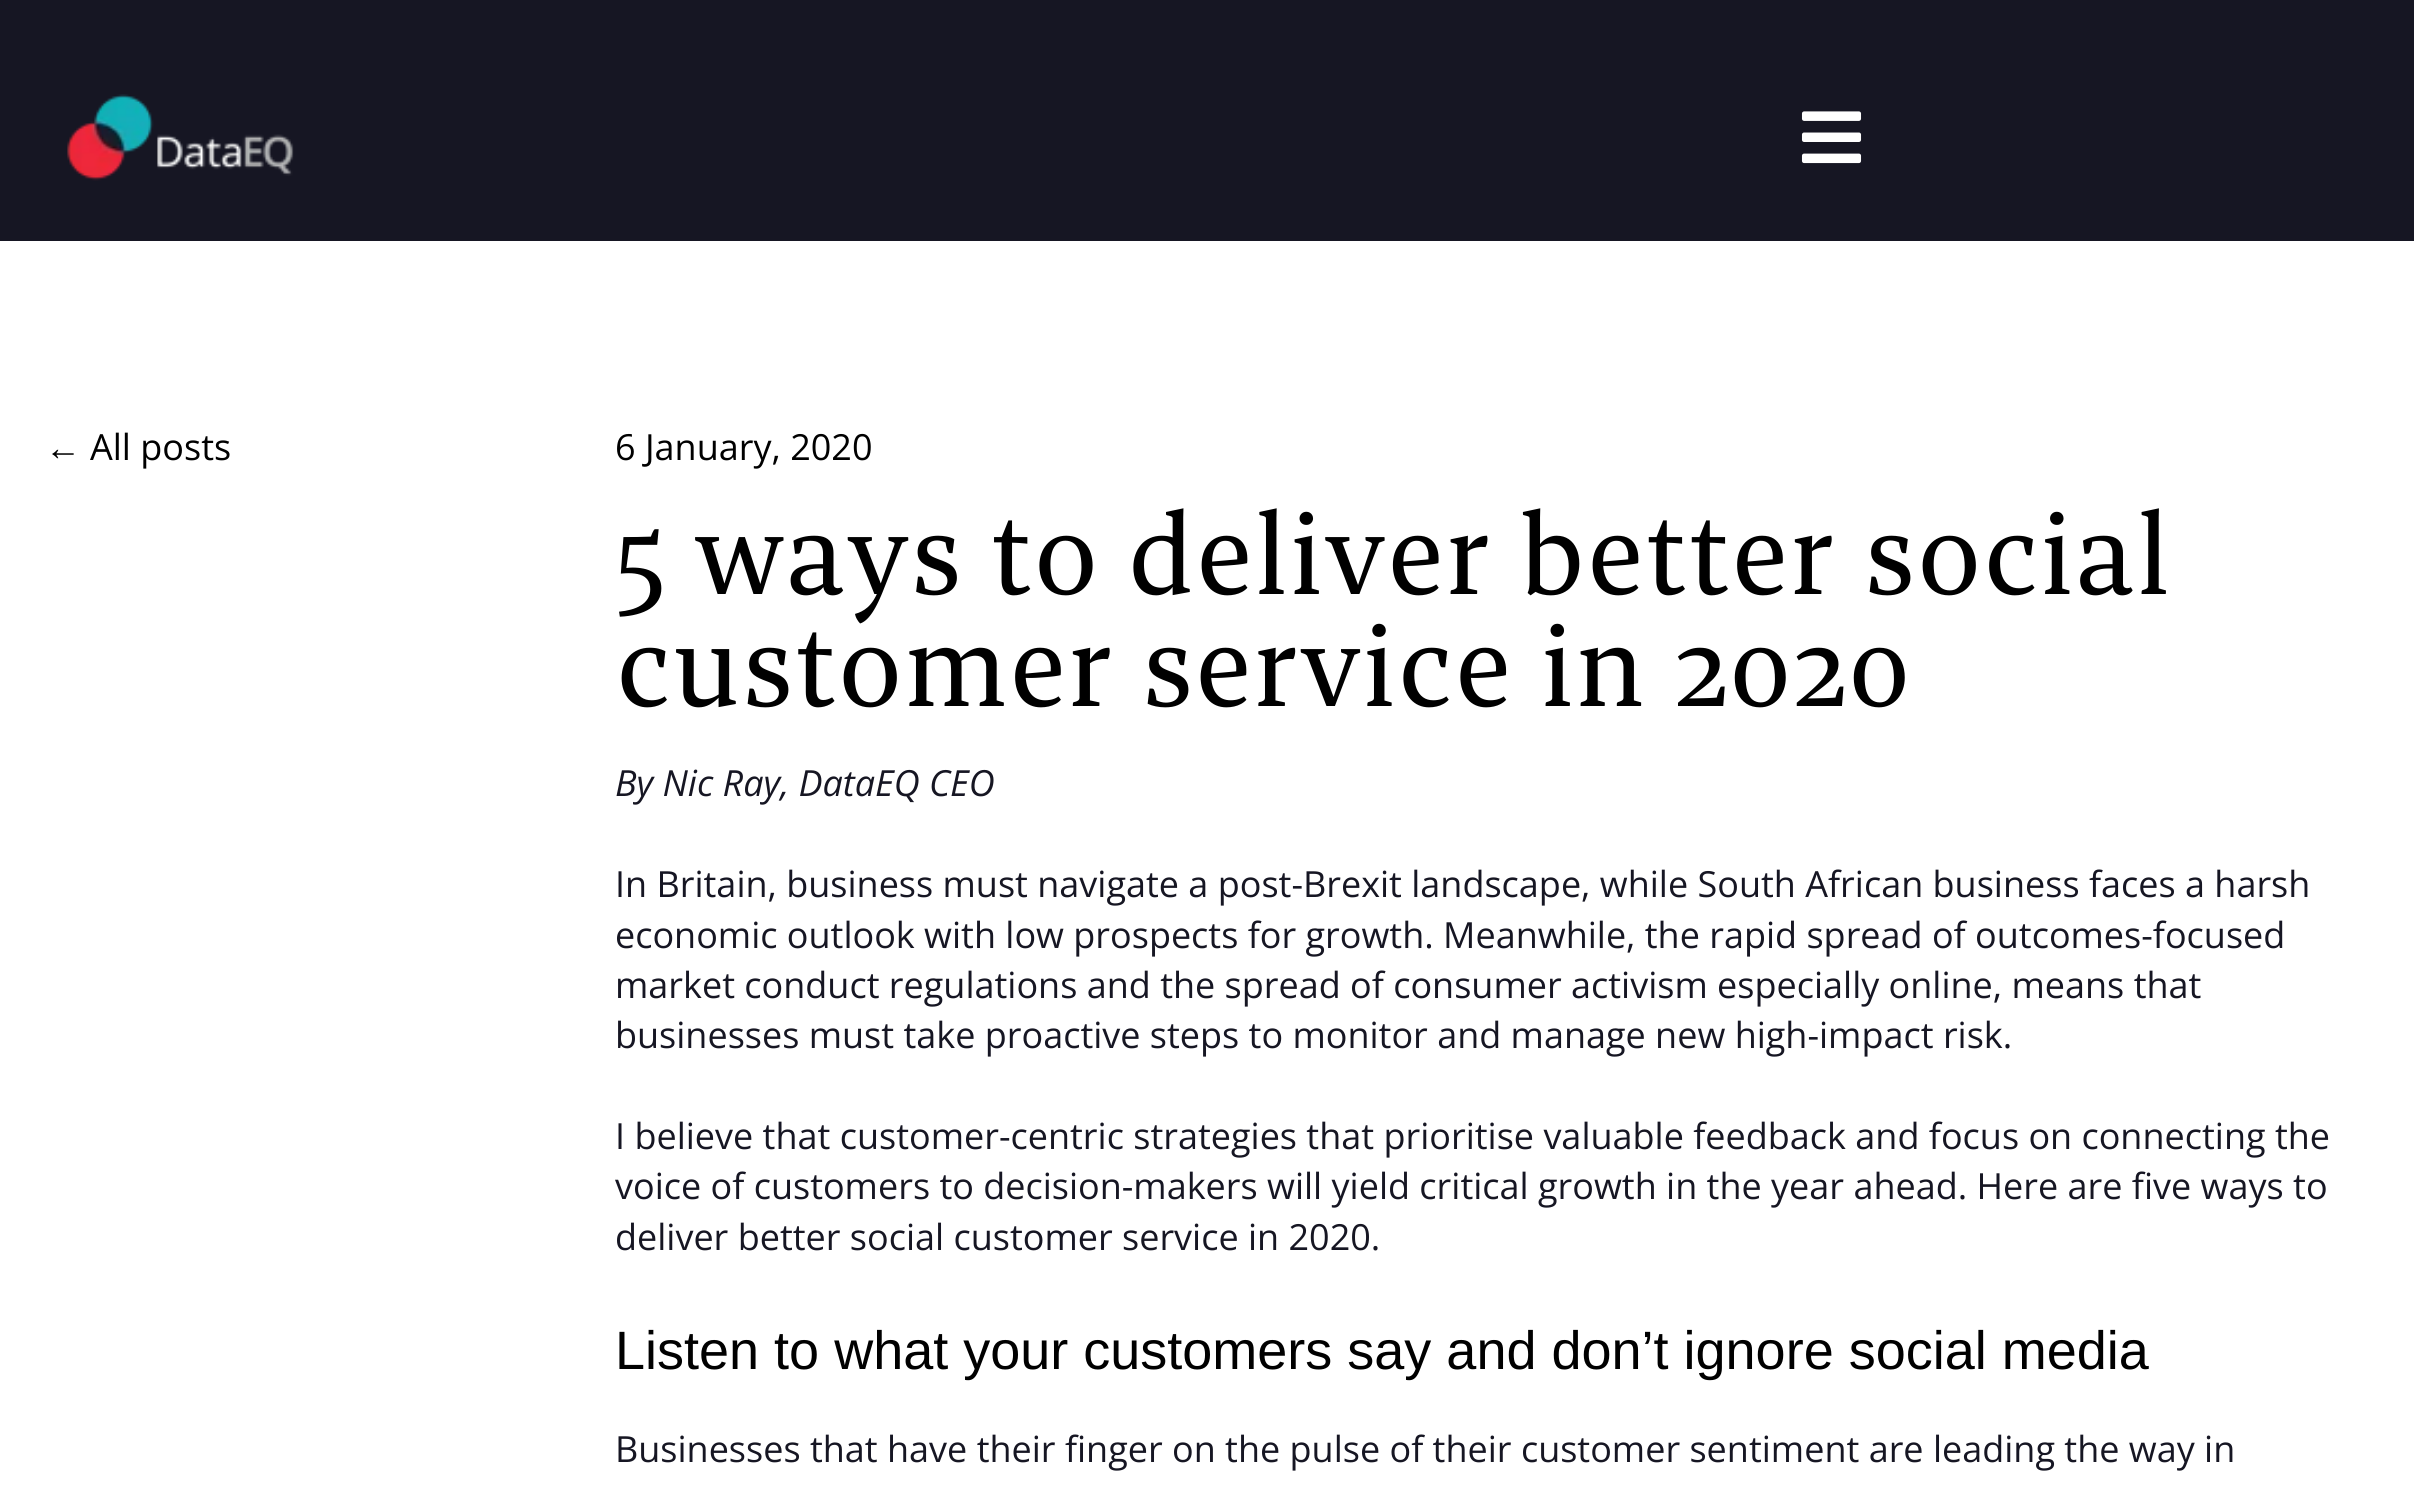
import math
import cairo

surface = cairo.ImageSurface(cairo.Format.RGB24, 2414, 1499)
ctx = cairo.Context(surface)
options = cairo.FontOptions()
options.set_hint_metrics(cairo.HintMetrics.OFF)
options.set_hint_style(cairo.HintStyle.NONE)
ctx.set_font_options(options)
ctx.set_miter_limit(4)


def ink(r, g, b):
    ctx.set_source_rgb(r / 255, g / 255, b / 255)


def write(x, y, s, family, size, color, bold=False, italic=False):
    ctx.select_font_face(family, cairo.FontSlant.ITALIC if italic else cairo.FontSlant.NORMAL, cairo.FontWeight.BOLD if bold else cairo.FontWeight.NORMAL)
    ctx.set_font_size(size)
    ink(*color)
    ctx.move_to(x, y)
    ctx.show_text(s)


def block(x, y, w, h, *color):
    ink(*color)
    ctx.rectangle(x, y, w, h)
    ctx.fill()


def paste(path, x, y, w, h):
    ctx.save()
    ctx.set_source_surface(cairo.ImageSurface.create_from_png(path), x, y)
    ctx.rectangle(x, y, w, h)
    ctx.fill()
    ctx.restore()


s1 = dict(family="Liberation Serif", size=36, color=(0, 0, 0))
s2 = dict(family="Open Sans", size=36, color=(0, 0, 0))
s3 = dict(family="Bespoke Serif", size=112.5, color=(0, 0, 0))
s4 = dict(family="Open Sans", size=36, color=(22, 22, 35), italic=True)
s5 = dict(family="Open Sans", size=36, color=(22, 22, 35))
s6 = dict(family="Liberation Sans", size=54, color=(0, 0, 0))

ink(22, 22, 35)
ctx.paint()
paste("pic1.png", 67, 94, 227, 87)
paste("pic2.png", 1801, 111, 61, 53)
block(0, 241, 2414, 1258, 255, 255, 255)
write(45, 460, "←", **s1)
write(90, 460, "All posts", **s2)
write(615, 460, "6 January, 2020", **s2)
write(615, 594, "5 ways to deliver better social", **s3)
write(615, 706, "customer service in 2020", **s3)
write(615, 796, "By Nic Ray, DataEQ CEO", **s4)
write(615, 897, "In Britain, business must navigate a post-Brexit landscape, while South African business faces a harsh", **s5)
write(615, 948, "economic outlook with low prospects for growth. Meanwhile, the rapid spread of outcomes-focused", **s5)
write(615, 998, "market conduct regulations and the spread of consumer activism especially online, means that", **s5)
write(615, 1048, "businesses must take proactive steps to monitor and manage new high-impact risk.", **s5)
write(615, 1149, "I believe that customer-centric strategies that prioritise valuable feedback and focus on connecting the", **s5)
write(615, 1199, "voice of customers to decision-makers will yield critical growth in the year ahead. Here are five ways to", **s5)
write(615, 1250, "deliver better social customer service in 2020.", **s5)
write(615, 1369, "Listen to what your customers say and don’t ignore social media", **s6)
write(615, 1462, "Businesses that have their finger on the pulse of their customer sentiment are leading the way in", **s5)
surface.write_to_png("screenshot.png")
